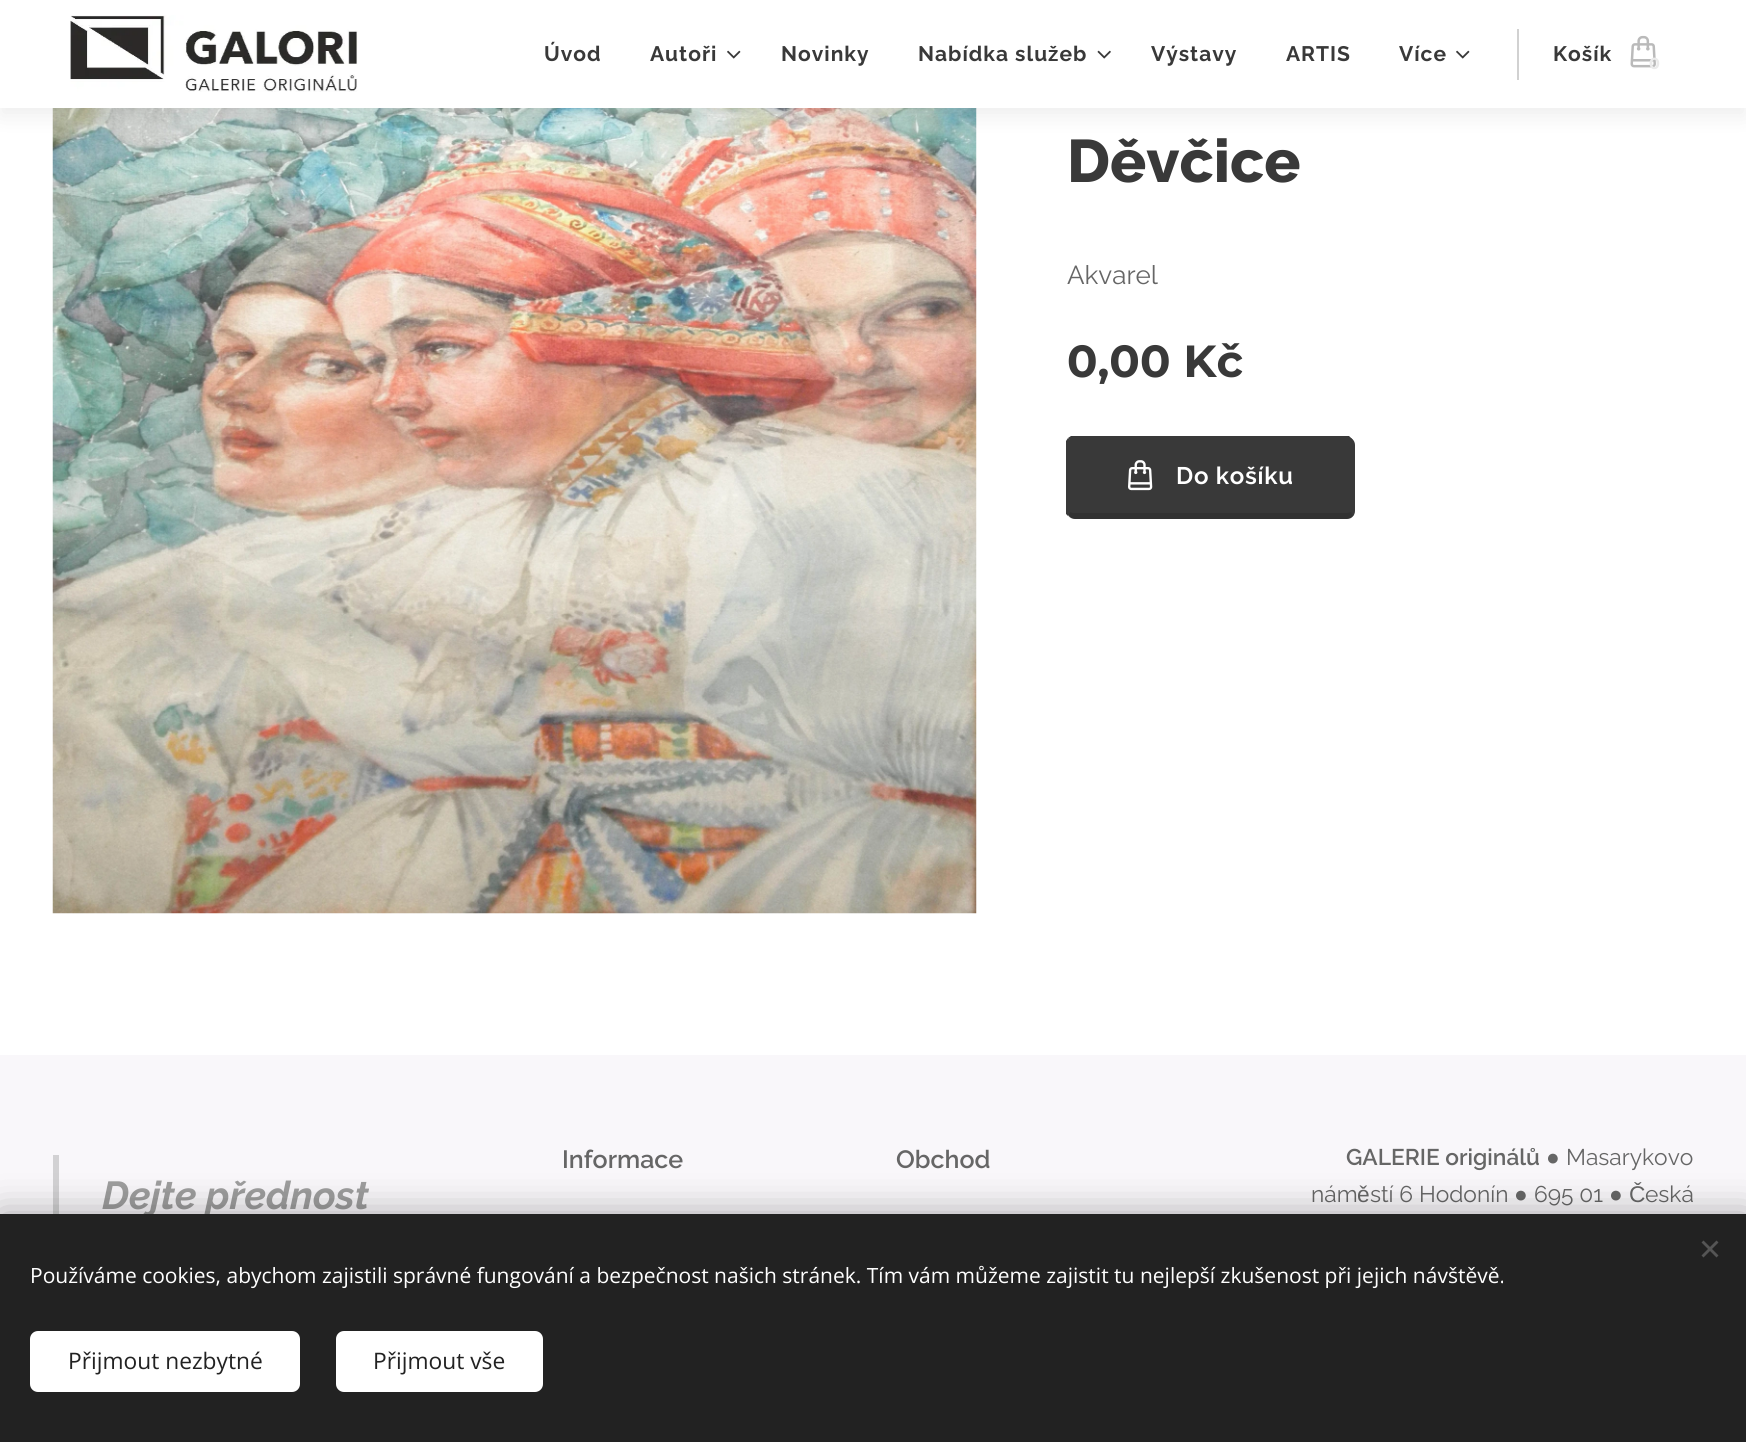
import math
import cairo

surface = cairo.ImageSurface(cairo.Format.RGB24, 1746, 1442)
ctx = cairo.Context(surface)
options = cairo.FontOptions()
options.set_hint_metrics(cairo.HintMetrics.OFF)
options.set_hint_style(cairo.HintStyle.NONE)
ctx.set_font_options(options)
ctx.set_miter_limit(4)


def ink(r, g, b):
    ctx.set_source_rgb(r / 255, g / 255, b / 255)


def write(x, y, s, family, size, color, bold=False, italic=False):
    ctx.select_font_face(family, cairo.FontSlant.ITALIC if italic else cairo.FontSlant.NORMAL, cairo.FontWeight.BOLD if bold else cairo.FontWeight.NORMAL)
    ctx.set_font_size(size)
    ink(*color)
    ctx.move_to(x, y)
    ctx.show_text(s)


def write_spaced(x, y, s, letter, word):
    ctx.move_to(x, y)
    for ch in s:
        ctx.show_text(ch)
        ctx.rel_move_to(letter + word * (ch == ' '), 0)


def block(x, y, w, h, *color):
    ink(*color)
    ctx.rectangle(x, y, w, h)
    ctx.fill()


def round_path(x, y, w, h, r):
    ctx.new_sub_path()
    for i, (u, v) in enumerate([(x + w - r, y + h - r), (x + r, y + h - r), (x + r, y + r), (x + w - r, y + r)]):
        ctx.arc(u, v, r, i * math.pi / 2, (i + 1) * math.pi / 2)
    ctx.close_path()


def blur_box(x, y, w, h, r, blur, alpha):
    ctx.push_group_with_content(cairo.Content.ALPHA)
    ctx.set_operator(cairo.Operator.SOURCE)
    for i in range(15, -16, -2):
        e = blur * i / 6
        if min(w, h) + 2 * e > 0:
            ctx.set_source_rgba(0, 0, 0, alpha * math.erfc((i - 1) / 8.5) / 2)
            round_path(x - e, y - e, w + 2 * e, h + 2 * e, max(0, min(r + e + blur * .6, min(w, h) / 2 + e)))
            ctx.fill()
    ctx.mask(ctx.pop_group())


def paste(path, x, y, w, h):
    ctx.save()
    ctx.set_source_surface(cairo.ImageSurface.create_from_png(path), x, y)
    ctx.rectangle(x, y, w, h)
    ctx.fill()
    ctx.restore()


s1 = dict(family="Montserrat", size=16, color=(235, 235, 235), bold=True)
s2 = dict(family="Raleway ExtraBold", size=60, color=(57, 57, 57))
s3 = dict(family="Raleway", size=26, color=(102, 102, 102))
s4 = dict(family="Montserrat", size=45, color=(57, 57, 57), bold=True)
s5 = dict(family="Raleway SemiBold", size=25, color=(102, 102, 102))
s6 = dict(family="Raleway SemiBold", size=22.75, color=(102, 102, 102))
s7 = dict(family="Liberation Sans", size=22.75, color=(102, 102, 102))
s8 = dict(family="Raleway", size=22.75, color=(102, 102, 102))
s9 = dict(family="Raleway", size=39, color=(157, 157, 157), bold=True, italic=True)
s10 = dict(family="Open Sans", size=21, color=(255, 255, 255))
s11 = dict(family="Open Sans", size=22.75, color=(34, 34, 34))

ink(255, 255, 255)
ctx.paint()
paste("pic5.png", 52, 108, 925, 806)
ink(0, 0, 0)
blur_box(0, 8, 1746, 108, 0, 11, 0.07)
block(0, 0, 1746, 108, 255, 255, 255)
paste("pic1.png", 70, 15, 288, 77)
ctx.select_font_face("Raleway", cairo.FontSlant.NORMAL, cairo.FontWeight.BOLD)
ctx.set_font_size(21)
ink(57, 57, 57)
write_spaced(544, 61, "Úvod", 1, 0)
write_spaced(650, 61, "Autoři", 1, 0)
paste("pic2.png", 727, 50, 14, 9)
write_spaced(781, 61, "Novinky", 1, 0)
write_spaced(918, 61, "Nabídka služeb", 1, 0)
paste("pic3.png", 1097, 50, 14, 9)
write_spaced(1151, 61, "Výstavy", 1, 0)
write_spaced(1286, 61, "ARTIS", 1, 0)
write_spaced(1399, 61, "Více", 1, 0)
paste("pic2.png", 1456, 50, 14, 9)
block(1517, 29, 2, 51, 209, 209, 209)
ink(57, 57, 57)
write_spaced(1553, 61, "Košík", 1, 0)
paste("pic4.png", 1630, 35, 26, 33)
write(1649, 69, "0", **s1)
write(1067, 182, "Děvčice", **s2)
write(1067, 284, "Akvarel", **s3)
write(1067, 377, "0,00 Kč", **s4)
round_path(1067, 437, 288, 82, 8)
ctx.fill()
ctx.new_path()
ctx.move_to(1074, 440)
ctx.line_to(1071, 441)
ctx.line_to(1068, 438)
ctx.line_to(1071, 436)
ctx.line_to(1349, 436)
ctx.line_to(1352, 439)
ctx.line_to(1350, 441)
ctx.line_to(1347, 440)
ctx.close_path()
ctx.fill()
ctx.new_path()
ctx.move_to(1352, 439)
ctx.line_to(1354, 443)
ctx.line_to(1354, 501)
ctx.curve_to(1354, 503, 1355, 512, 1353, 516)
ctx.line_to(1351, 512)
ctx.line_to(1352, 512)
ctx.line_to(1352, 444)
ctx.line_to(1350, 441)
ctx.close_path()
ctx.fill()
ctx.set_source_rgba(0, 0, 0, 0.12)
ctx.new_path()
ctx.move_to(1074, 519)
ctx.line_to(1347, 519)
ctx.curve_to(1350, 519, 1352, 518, 1353, 516)
ctx.line_to(1351, 512)
ctx.line_to(1347, 513)
ctx.line_to(1074, 513)
ctx.curve_to(1072, 513, 1070, 512, 1070, 512)
ctx.line_to(1068, 516)
ctx.curve_to(1069, 518, 1072, 519, 1074, 519)
ctx.close_path()
ctx.fill()
ink(57, 57, 57)
ctx.new_path()
ctx.move_to(1066, 441)
ctx.line_to(1068, 438)
ctx.line_to(1071, 441)
ctx.line_to(1070, 444)
ctx.line_to(1070, 512)
ctx.line_to(1068, 516)
ctx.line_to(1066, 514)
ctx.close_path()
ctx.fill()
paste("pic6.png", 1128, 460, 25, 31)
ctx.select_font_face("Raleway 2 SemiBold")
ctx.set_font_size(24)
ink(255, 255, 255)
write_spaced(1176, 484, "Do košíku", 0.75, 0)
block(0, 1055, 1746, 159, 249, 247, 250)
write(562, 1168, "Informace", **s5)
write(896, 1168, "Obchod", **s5)
write(1346, 1165, "GALERIE originálů", **s6)
write(1546, 1165, "●", **s7)
write(1566, 1165, "Masarykovo", **s8)
write(1311, 1202, "nám", **s8)
write(1357, 1202, "ě", **s7)
write(1370, 1202, "stí 6 Hodonín", **s8)
write(1514, 1202, "●", **s7)
write(1534, 1202, "695 01", **s8)
write(1609, 1202, "●", **s7)
write(1629, 1202, "Č", **s7)
write(1645, 1202, "eská", **s8)
block(53, 1155, 6, 59, 210, 209, 211)
write(102, 1209, "Dejte přednost", **s9)
ink(0, 0, 0)
blur_box(0, 1214, 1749, 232, 0, 19, 0.33)
block(0, 1214, 1746, 228, 34, 34, 34)
ink(85, 85, 85)
ctx.new_path()
ctx.move_to(1701.5, 1255.5)
ctx.line_to(1716.5, 1240.5)
ctx.line_to(1718.5, 1242.5)
ctx.line_to(1703.5, 1257.5)
ctx.close_path()
ctx.fill()
ctx.new_path()
ctx.move_to(1703.5, 1240.5)
ctx.line_to(1718.5, 1255.5)
ctx.line_to(1716.5, 1257.5)
ctx.line_to(1701.5, 1242.5)
ctx.close_path()
ctx.fill()
write(30, 1283, "Používáme cookies, abychom zajistili správné fungování a bezpečnost našich stránek. Tím vám můžeme zajistit tu nejlepší zkušenost při jejich návštěvě.", **s10)
round_path(30, 1331, 270, 61, 8)
ctx.fill()
write(68, 1369, "Přijmout nezbytné", **s11)
ink(255, 255, 255)
round_path(336, 1331, 207, 61, 8)
ctx.fill()
write(373, 1369, "Přijmout vše", **s11)
surface.write_to_png("screenshot.png")
